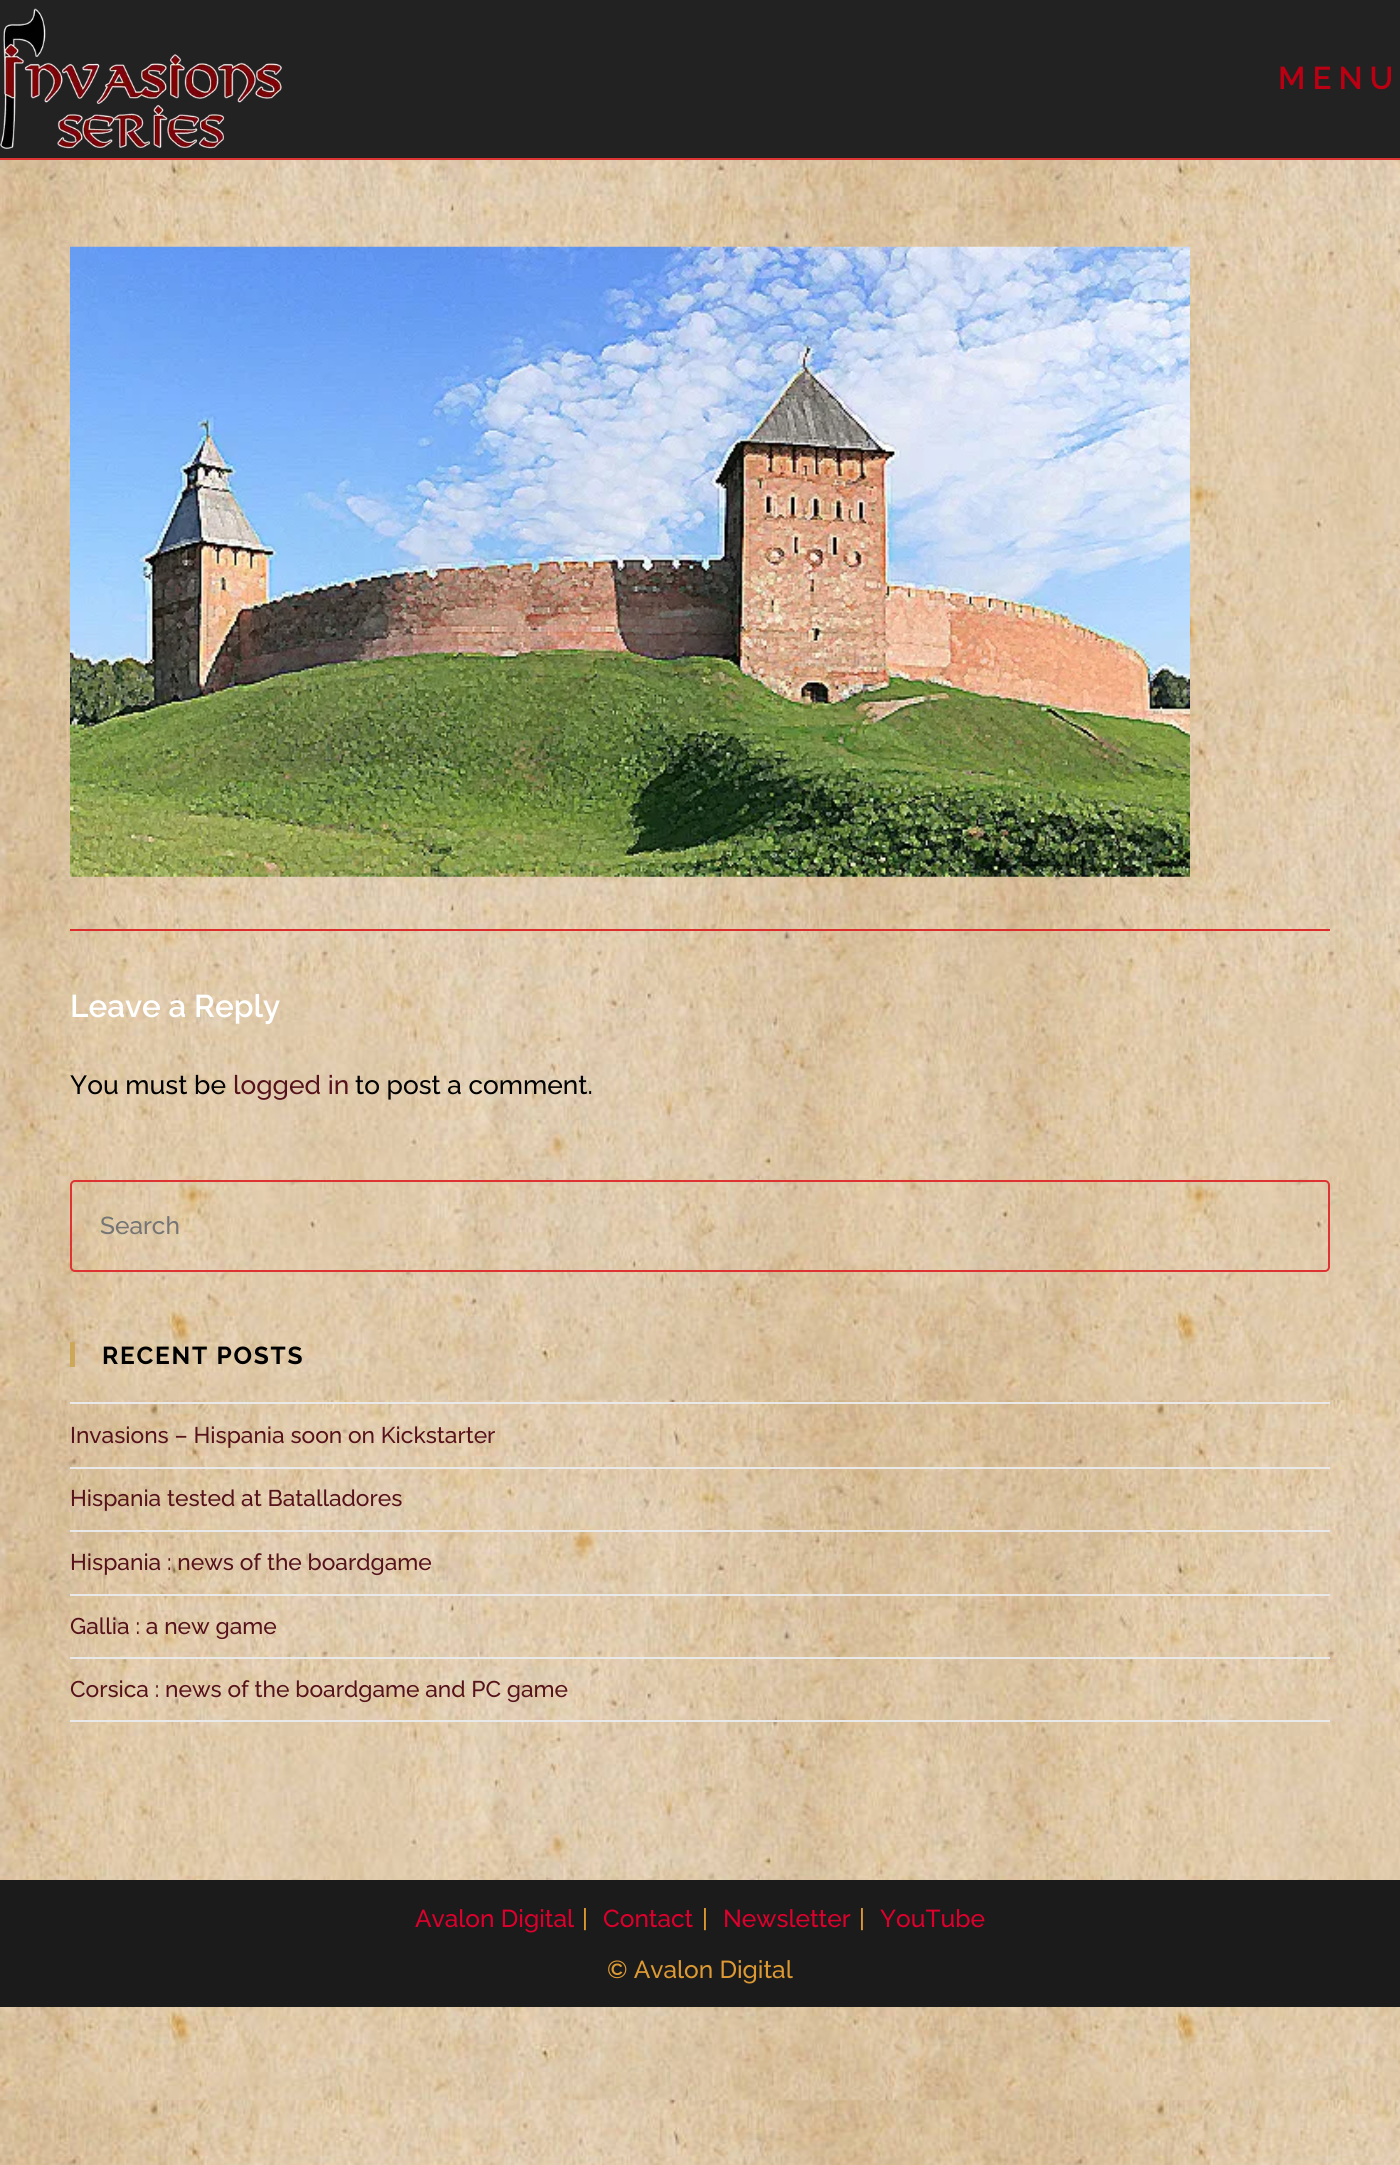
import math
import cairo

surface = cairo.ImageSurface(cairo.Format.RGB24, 1400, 2165)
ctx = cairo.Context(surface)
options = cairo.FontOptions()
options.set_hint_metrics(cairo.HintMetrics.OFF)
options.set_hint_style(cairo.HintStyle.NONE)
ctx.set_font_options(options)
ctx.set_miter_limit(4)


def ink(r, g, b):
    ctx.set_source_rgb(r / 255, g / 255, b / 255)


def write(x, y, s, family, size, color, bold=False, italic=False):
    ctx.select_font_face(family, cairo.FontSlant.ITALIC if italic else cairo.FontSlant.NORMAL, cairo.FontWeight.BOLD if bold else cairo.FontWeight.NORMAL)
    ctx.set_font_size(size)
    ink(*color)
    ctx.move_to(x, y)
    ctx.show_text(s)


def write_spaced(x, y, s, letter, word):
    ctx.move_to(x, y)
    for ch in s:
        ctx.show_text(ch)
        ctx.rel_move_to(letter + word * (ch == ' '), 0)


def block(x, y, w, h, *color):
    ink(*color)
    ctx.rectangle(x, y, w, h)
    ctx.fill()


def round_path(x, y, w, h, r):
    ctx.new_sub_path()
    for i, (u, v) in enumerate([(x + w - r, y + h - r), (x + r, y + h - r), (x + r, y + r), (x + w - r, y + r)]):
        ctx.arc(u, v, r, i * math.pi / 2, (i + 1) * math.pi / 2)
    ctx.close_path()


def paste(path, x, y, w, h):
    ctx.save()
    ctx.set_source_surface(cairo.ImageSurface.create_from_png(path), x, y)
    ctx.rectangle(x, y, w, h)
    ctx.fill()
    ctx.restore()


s1 = dict(family="Raleway SemiBold", size=31.5, color=(255, 255, 255))
s2 = dict(family="Raleway Medium", size=26.25, color=(0, 0, 0))
s3 = dict(family="Raleway Medium", size=26.25, color=(86, 18, 26))
s4 = dict(family="Raleway Medium", size=24.5, color=(117, 117, 117))
s5 = dict(family="Raleway Medium", size=22.75, color=(86, 18, 26))
s6 = dict(family="Raleway Medium", size=24.5, color=(221, 0, 44))
s7 = dict(family="Raleway Medium", size=24.5, color=(221, 153, 51))

ink(255, 255, 255)
ctx.paint()
paste("pic1.png", 0, 160, 1400, 2005)
block(0, 0, 1400, 158, 34, 34, 34)
block(0, 158, 1400, 2, 221, 51, 51)
paste("pic2.png", 0, 8, 282, 141)
ctx.select_font_face("Raleway SemiBold")
ctx.set_font_size(31.5)
ink(186, 0, 18)
write_spaced(1278, 89, "MENU", 7, 0)
paste("pic3.png", 70, 246, 1120, 631)
block(70, 929, 1260, 2, 221, 44, 44)
write(70, 1017, "Leave a Reply", **s1)
write(70, 1094, "You must be", **s2)
write(233, 1094, "logged in", **s3)
write(355, 1094, "to post a comment.", **s2)
round_path(71, 1181, 1258, 90, 4)
ink(221, 51, 51)
ctx.stroke()
write(100, 1234, "Search", **s4)
block(70, 1342, 5, 25, 205, 168, 91)
ctx.select_font_face("Raleway", cairo.FontSlant.NORMAL, cairo.FontWeight.BOLD)
ink(0, 0, 0)
write_spaced(102, 1364, "RECENT POSTS", 1.75, 0)
block(70, 1402, 1260, 2, 233, 233, 233)
block(70, 1467, 1260, 2, 233, 233, 233)
write(70, 1443, "Invasions – Hispania soon on Kickstarter", **s5)
block(70, 1530, 1260, 2, 233, 233, 233)
write(70, 1506, "Hispania tested at Batalladores", **s5)
block(70, 1594, 1260, 2, 233, 233, 233)
write(70, 1570, "Hispania : news of the boardgame", **s5)
block(70, 1657, 1260, 2, 233, 233, 233)
write(70, 1634, "Gallia : a new game", **s5)
block(70, 1720, 1260, 2, 233, 233, 233)
write(70, 1697, "Corsica : news of the boardgame and PC game", **s5)
block(0, 1880, 1400, 127, 27, 27, 27)
write(415, 1927, "Avalon Digital", **s6)
write(582, 1927, "|", **s7)
write(603, 1927, "Contact", **s6)
write(702, 1927, "|", **s7)
write(723, 1927, "Newsletter", **s6)
write(859, 1927, "|", **s7)
write(880, 1927, "YouTube", **s6)
write(607, 1978, "© Avalon Digital", **s7)
surface.write_to_png("screenshot.png")
